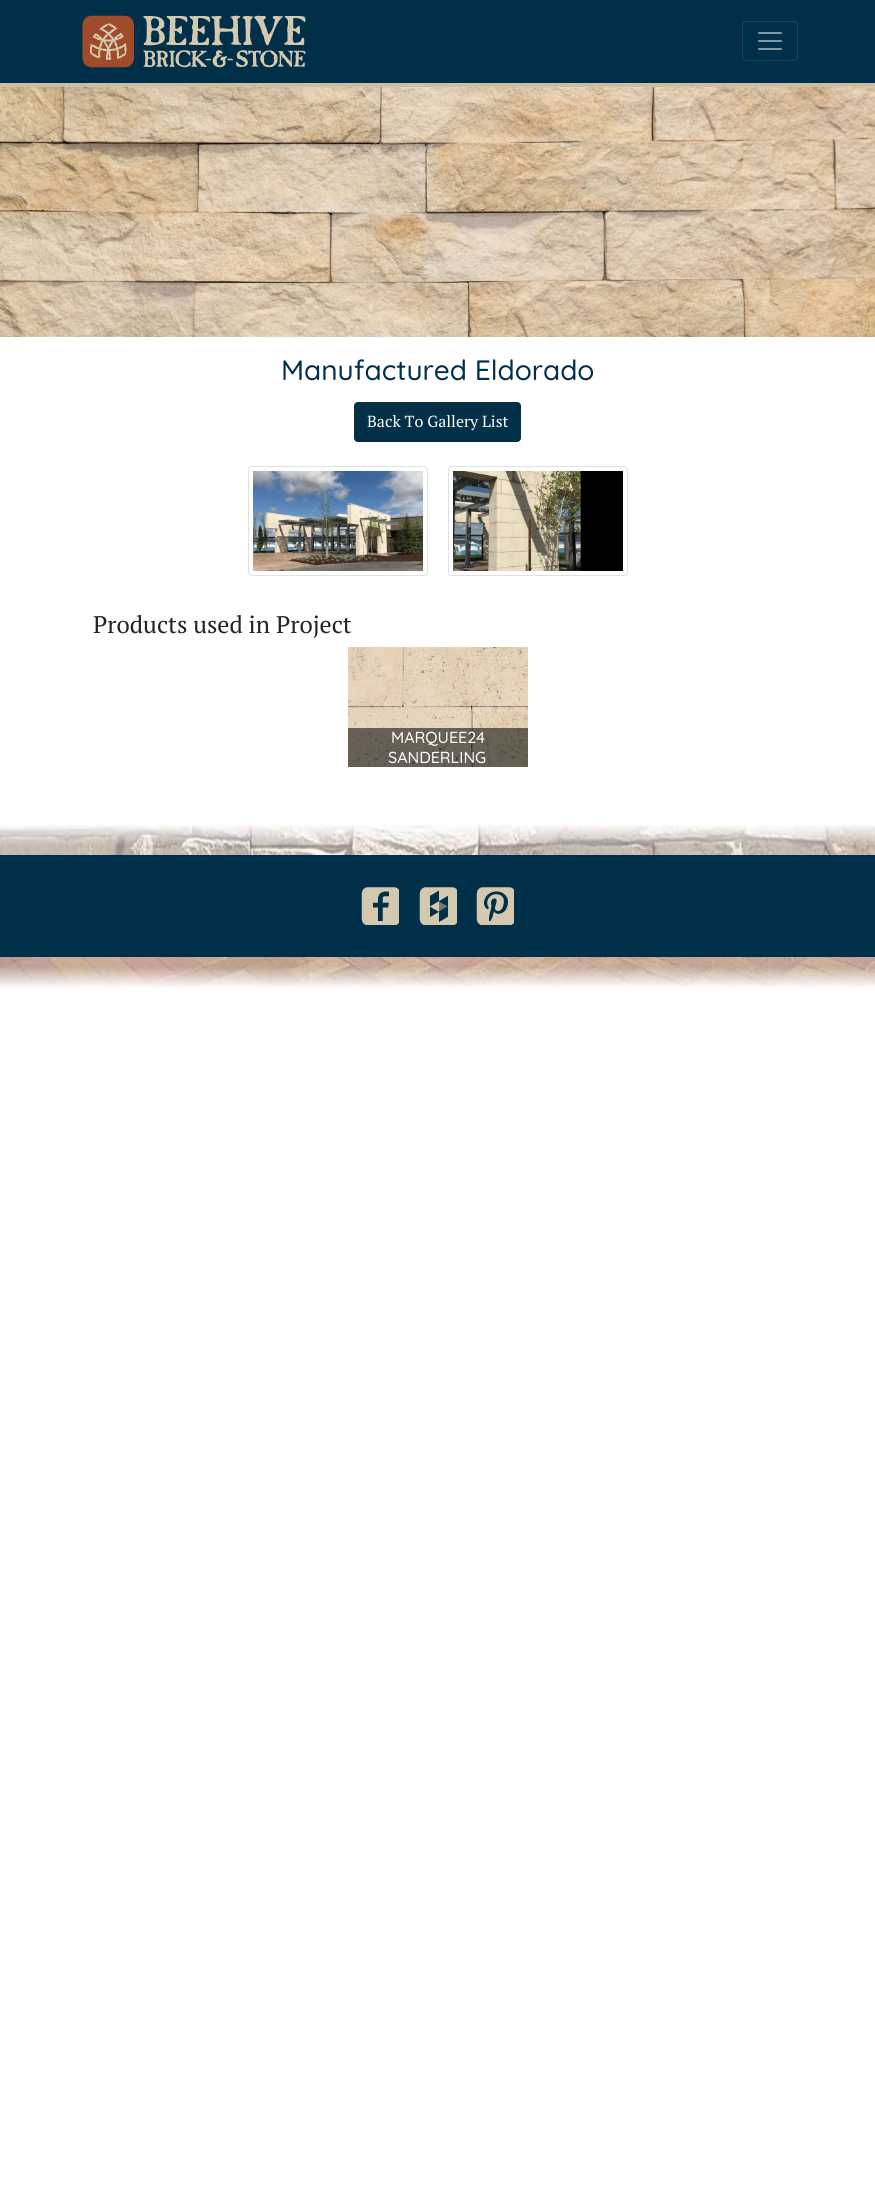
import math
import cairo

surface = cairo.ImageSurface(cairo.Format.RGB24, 875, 2212)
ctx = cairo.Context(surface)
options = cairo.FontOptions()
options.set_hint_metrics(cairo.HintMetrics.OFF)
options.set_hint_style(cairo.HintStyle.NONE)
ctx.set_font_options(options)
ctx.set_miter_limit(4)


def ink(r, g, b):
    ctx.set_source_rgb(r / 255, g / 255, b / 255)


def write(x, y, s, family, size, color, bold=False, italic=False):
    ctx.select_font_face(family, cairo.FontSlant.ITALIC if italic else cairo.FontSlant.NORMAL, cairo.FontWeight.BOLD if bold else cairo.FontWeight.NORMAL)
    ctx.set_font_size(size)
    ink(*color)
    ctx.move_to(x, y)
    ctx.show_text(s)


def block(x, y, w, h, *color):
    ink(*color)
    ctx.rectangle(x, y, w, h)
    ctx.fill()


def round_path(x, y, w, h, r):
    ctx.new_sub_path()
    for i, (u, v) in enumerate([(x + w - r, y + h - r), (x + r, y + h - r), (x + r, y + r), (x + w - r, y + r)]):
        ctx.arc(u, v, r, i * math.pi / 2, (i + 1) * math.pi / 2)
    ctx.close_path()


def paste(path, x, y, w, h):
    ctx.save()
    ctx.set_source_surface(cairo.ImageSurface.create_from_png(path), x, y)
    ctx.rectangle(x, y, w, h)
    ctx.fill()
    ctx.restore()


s1 = dict(family="Quicksand Light", size=28, color=(0, 48, 73))
s2 = dict(family="PT Serif", size=16, color=(255, 255, 255))
s3 = dict(family="PT Serif", size=24, color=(33, 37, 41))
s4 = dict(family="Quicksand Light", size=16, color=(255, 255, 255))

ink(255, 255, 255)
ctx.paint()
block(0, 0, 875, 83, 0, 48, 73)
block(0, 83, 875, 4, 201, 191, 165)
paste("pic1.png", 82, 15, 224, 53)
round_path(742.5, 21.5, 55, 39, 3.5)
ink(26, 69, 91)
ctx.set_line_width(1)
ctx.stroke()
paste("pic2.png", 758, 32, 24, 18)
paste("pic3.png", 0, 87, 875, 250)
write(281, 380, "Manufactured Eldorado", **s1)
ink(2, 48, 72)
round_path(354.5, 402.5, 166, 39, 3.5)
ctx.fill_preserve()
ctx.stroke()
write(367, 427, "Back To Gallery List", **s2)
round_path(248.5, 466.5, 179, 109, 3.5)
ink(222, 226, 230)
ctx.stroke()
paste("pic4.png", 253, 471, 170, 100)
round_path(448.5, 466.5, 179, 109, 3.5)
ctx.stroke()
paste("pic5.png", 453, 471, 170, 100)
write(93, 633, "Products used in Project", **s3)
paste("pic6.png", 348, 647, 180, 120)
ctx.set_source_rgba(0, 0, 0, 0.55)
ctx.rectangle(348, 728, 180, 39)
ctx.fill()
write(391, 743, "MARQUEE24", **s4)
write(388, 763, "SANDERLING", **s4)
paste("pic7.png", 0, 825, 875, 30)
block(0, 855, 875, 102, 0, 48, 73)
paste("pic8.png", 361, 887, 38, 38)
paste("pic9.png", 419, 887, 38, 38)
paste("pic10.png", 476, 887, 38, 38)
paste("pic11.png", 0, 957, 875, 30)
surface.write_to_png("screenshot.png")
